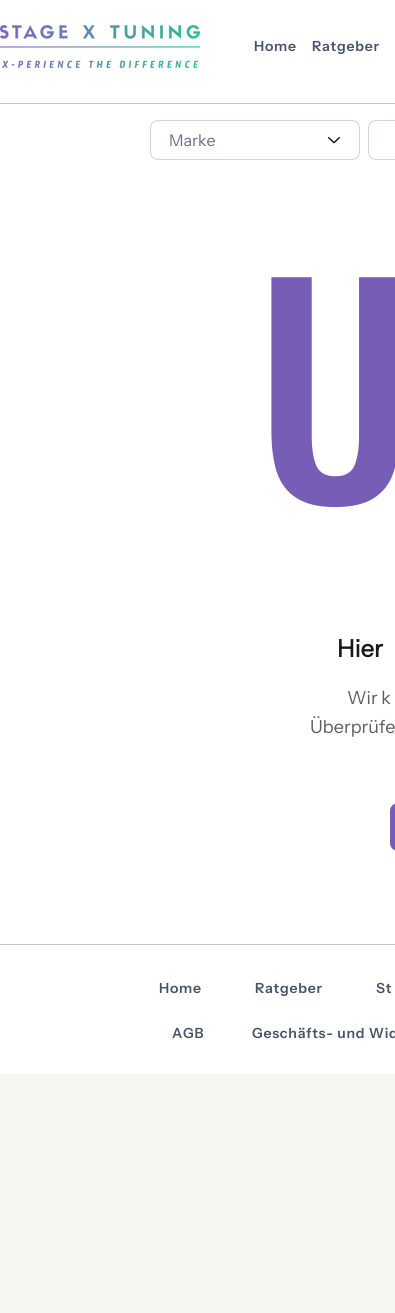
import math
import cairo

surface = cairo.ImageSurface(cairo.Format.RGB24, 395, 1313)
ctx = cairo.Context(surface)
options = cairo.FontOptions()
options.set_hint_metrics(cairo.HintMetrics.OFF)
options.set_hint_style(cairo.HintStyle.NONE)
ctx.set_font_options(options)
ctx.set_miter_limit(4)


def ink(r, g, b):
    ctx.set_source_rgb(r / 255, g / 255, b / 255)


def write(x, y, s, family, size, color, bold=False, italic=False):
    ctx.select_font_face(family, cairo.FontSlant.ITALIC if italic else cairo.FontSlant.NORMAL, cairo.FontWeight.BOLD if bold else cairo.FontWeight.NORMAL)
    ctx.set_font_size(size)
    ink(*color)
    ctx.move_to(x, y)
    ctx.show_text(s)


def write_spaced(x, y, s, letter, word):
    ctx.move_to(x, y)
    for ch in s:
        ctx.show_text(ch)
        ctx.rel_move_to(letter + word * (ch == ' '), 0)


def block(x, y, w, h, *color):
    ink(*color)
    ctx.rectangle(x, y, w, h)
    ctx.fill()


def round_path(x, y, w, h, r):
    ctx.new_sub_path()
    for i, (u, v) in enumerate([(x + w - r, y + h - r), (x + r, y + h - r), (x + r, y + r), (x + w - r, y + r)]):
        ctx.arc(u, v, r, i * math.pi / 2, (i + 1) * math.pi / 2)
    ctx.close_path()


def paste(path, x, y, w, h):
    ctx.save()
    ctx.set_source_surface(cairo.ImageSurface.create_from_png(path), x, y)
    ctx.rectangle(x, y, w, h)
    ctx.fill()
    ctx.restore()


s1 = dict(family="Instrument Sans", size=16, color=(102, 112, 133))
s2 = dict(family="Oswald Medium", size=280, color=(120, 93, 182))
s3 = dict(family="Instrument Sans", size=24, color=(24, 24, 27), bold=True)
s4 = dict(family="Instrument Sans", size=18, color=(93, 95, 91))

ink(255, 255, 255)
ctx.paint()
paste("pic1.png", 0, 25, 200, 43)
ctx.select_font_face("Instrument Sans SemiBold")
ctx.set_font_size(14)
ink(71, 84, 103)
write_spaced(254, 51, "Home", 0.75, 0)
write_spaced(312, 51, "Ratgeber", 0.75, 0)
block(0, 103, 395, 1, 197, 197, 197)
round_path(150.5, 120.5, 209, 39, 7.5)
ink(208, 213, 221)
ctx.set_line_width(1)
ctx.stroke()
write(169, 146, "Marke", **s1)
paste("pic2.png", 328, 137, 12, 7)
round_path(368.5, 120.5, 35, 39, 7.5)
ink(208, 213, 221)
ctx.stroke()
write(256, 504, "U", **s2)
write(337, 657, "Hier", **s3)
write(347, 704, "Wir k", **s4)
write(310, 733, "Überprüfe", **s4)
ink(120, 93, 182)
round_path(390, 803, 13, 48, 8)
ctx.fill()
block(0, 944, 395, 1, 197, 197, 197)
ctx.select_font_face("Instrument Sans SemiBold")
ctx.set_font_size(14)
ink(71, 84, 103)
write_spaced(159, 993, "Home", 0.75, 0)
write_spaced(255, 993, "Ratgeber", 0.75, 0)
write_spaced(376, 993, "St", 0.75, 0)
write_spaced(172, 1038, "AGB", 0.75, 0)
write_spaced(252, 1038, "Geschäfts- und Wid", 0.75, 0)
block(0, 1074, 395, 239, 245, 247, 242)
surface.write_to_png("screenshot.png")
